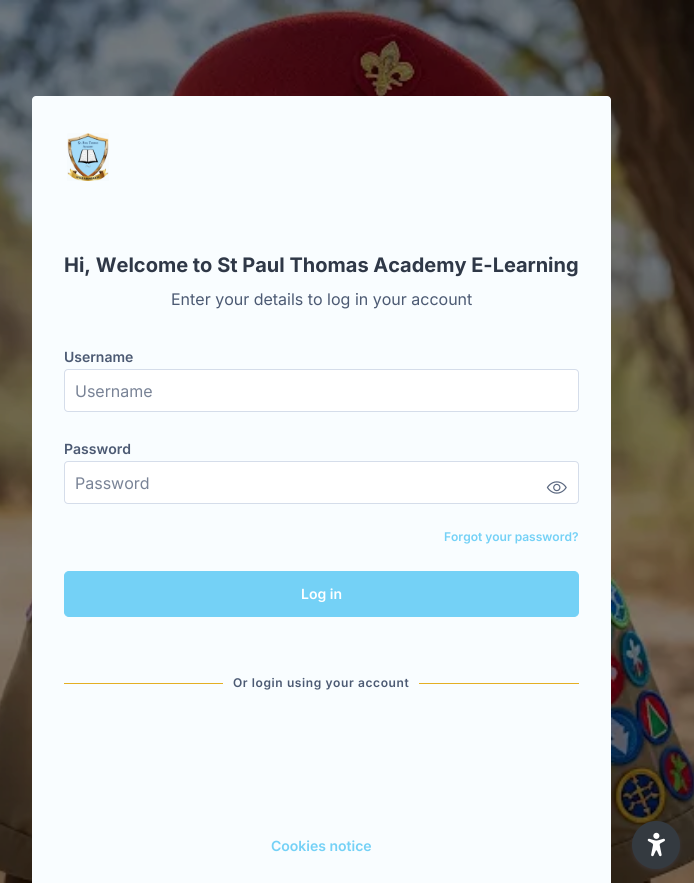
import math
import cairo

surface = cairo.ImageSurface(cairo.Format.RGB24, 694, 883)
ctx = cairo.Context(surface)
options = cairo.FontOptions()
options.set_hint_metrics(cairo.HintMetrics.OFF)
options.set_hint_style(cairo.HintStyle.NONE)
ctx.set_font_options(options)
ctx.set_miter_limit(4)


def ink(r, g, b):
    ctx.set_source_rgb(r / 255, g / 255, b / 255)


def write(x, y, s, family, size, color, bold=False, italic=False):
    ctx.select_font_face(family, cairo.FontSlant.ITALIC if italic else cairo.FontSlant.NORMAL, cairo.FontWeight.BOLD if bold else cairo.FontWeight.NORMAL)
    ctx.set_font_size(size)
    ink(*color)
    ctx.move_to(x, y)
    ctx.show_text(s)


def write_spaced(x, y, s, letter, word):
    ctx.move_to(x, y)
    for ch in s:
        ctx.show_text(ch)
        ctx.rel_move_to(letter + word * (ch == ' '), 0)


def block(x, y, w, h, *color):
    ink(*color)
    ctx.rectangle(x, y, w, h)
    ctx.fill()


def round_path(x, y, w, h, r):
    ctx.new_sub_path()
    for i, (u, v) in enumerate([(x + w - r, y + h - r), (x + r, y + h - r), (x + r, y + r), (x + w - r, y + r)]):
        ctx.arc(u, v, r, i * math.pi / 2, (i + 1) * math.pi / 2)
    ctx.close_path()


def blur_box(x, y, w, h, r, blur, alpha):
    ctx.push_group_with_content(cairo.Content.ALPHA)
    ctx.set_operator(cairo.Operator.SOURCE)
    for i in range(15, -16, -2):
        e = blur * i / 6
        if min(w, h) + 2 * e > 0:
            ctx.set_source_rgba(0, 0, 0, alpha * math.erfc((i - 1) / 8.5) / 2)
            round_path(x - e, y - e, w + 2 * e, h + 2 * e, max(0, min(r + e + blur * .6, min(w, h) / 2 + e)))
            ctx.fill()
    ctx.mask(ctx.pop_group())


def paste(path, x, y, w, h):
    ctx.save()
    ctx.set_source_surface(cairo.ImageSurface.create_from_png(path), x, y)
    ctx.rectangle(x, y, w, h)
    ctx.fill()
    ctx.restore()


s1 = dict(family="Inter", size=20, color=(47, 56, 71), bold=True)
s2 = dict(family="Inter", size=16, color=(76, 90, 115))
s3 = dict(family="Inter SemiBold", size=14, color=(76, 90, 115))
s4 = dict(family="Inter", size=16, color=(121, 131, 150))
s5 = dict(family="Inter SemiBold", size=12, color=(116, 209, 246))
s6 = dict(family="Inter SemiBold", size=14, color=(255, 255, 255))
s7 = dict(family="Inter SemiBold", size=14, color=(116, 209, 246))

ink(255, 255, 255)
ctx.paint()
paste("pic1.png", 0, 0, 694, 883)
ink(249, 253, 255)
round_path(32, 96, 579, 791, 4)
ctx.fill()
paste("pic2.png", 67, 133, 42, 48)
write(64, 272, "Hi, Welcome to St Paul Thomas Academy E-Learning", **s1)
write(171, 305, "Enter your details to log in your account", **s2)
write(64, 362, "Username", **s3)
ink(255, 255, 255)
round_path(64.5, 369.5, 514, 42, 3.5)
ctx.fill_preserve()
ink(213, 221, 234)
ctx.set_line_width(1)
ctx.stroke()
write(75, 397, "Username", **s4)
write(64, 454, "Password", **s3)
ink(255, 255, 255)
round_path(64.5, 461.5, 514, 42, 3.5)
ctx.fill_preserve()
ink(213, 221, 234)
ctx.stroke()
write(75, 489, "Password", **s4)
paste("pic3.png", 546, 481, 21, 13)
write(444, 541, "Forgot your password?", **s5)
round_path(64.5, 571.5, 514, 45, 4.5)
ctx.fill_preserve()
ctx.stroke()
write(301, 599, "Log in", **s6)
block(64, 683, 159, 1, 228, 175, 35)
ctx.set_font_size(12)
ink(76, 90, 115)
write_spaced(233, 687, "Or login using your account", 0.6, 0)
block(419, 683, 160, 1, 228, 175, 35)
write(271, 851, "Cookies notice", **s7)
ink(93, 100, 148)
blur_box(632, 823, 48, 48, 24, 2, 0.2)
ink(52, 58, 64)
ctx.arc(656, 845, 24, 0, 2 * math.pi)
ctx.fill()
paste("pic4.png", 647, 832, 18, 25)
surface.write_to_png("screenshot.png")
